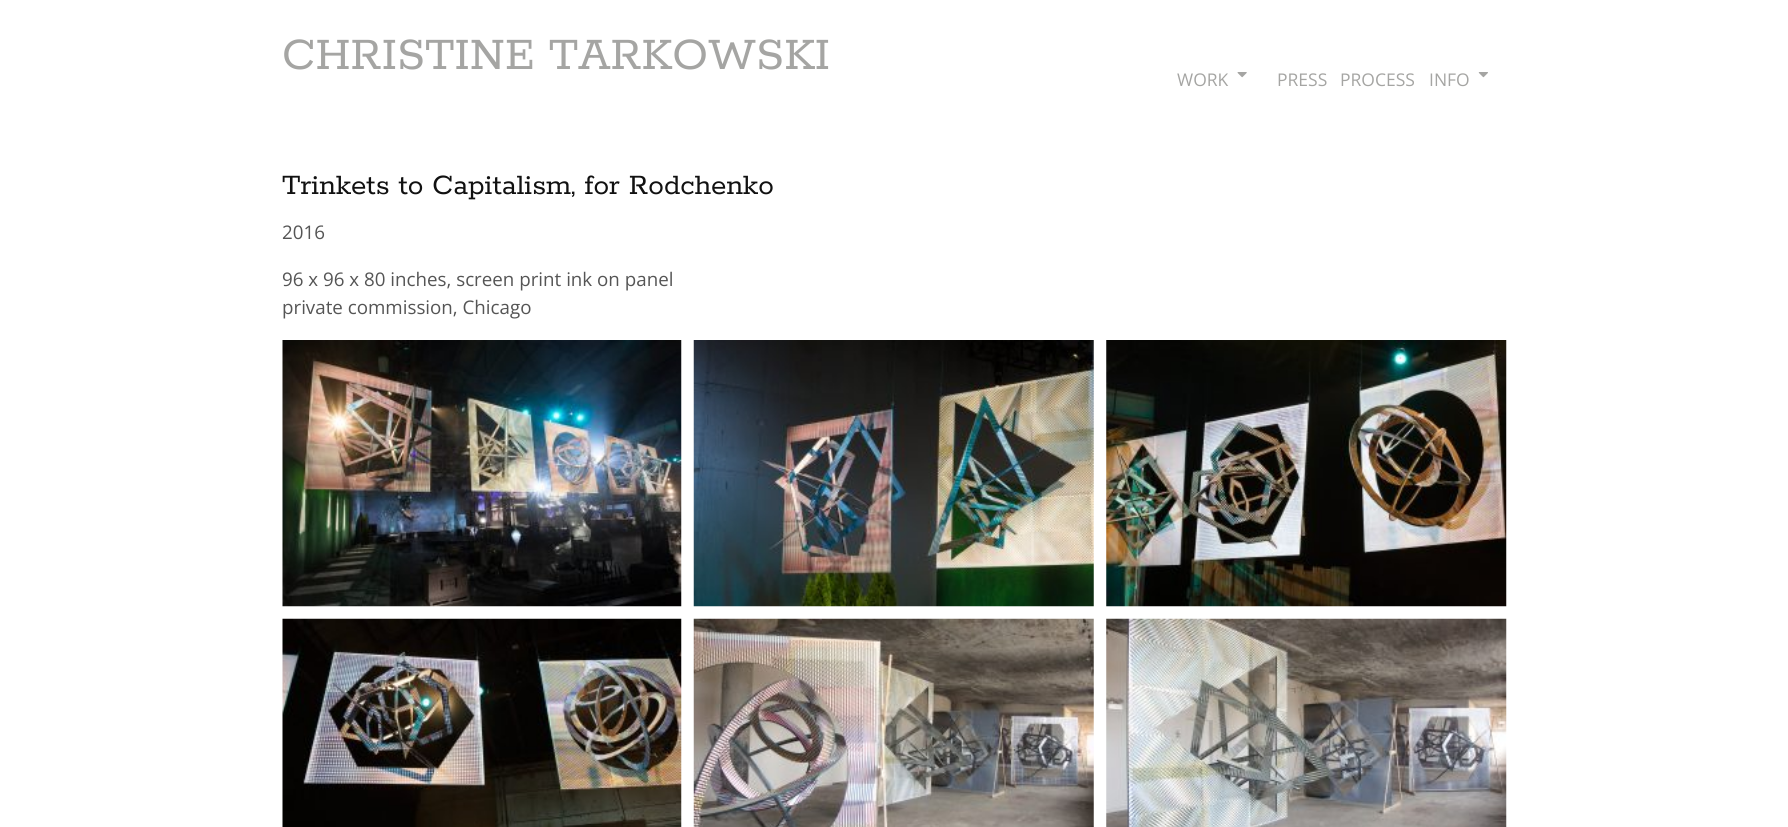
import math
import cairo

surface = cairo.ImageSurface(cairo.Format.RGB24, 1788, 827)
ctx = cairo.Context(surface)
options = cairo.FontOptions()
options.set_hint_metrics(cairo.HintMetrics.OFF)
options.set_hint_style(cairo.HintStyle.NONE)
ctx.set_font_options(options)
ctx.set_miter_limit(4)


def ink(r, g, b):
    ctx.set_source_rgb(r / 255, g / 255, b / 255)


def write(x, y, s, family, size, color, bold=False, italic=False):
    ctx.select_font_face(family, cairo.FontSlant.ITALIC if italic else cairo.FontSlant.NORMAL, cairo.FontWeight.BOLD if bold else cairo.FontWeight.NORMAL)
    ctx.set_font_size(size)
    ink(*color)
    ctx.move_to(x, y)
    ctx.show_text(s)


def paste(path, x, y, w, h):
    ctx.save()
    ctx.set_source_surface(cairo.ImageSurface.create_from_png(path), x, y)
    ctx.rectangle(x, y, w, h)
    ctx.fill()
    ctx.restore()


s1 = dict(family="Rokkitt", size=50, color=(165, 165, 163))
s2 = dict(family="Open Sans", size=17.5, color=(165, 165, 163))
s3 = dict(family="Rokkitt", size=31.25, color=(17, 17, 17))
s4 = dict(family="Open Sans", size=18.75, color=(85, 85, 85))

ink(255, 255, 255)
ctx.paint()
write(282, 69, "CHRISTINE TARKOWSKI", **s1)
write(1177, 86, "WORK", **s2)
paste("pic1.png", 1237, 72, 10, 6)
write(1277, 86, "PRESS", **s2)
write(1340, 86, "PROCESS", **s2)
write(1429, 86, "INFO", **s2)
paste("pic2.png", 1478, 72, 10, 6)
write(282, 194, "Trinkets to Capitalism, for Rodchenko", **s3)
write(282, 239, "2016", **s4)
write(282, 286, "96 x 96 x 80 inches, screen print ink on panel", **s4)
write(282, 314, "private commission, Chicago", **s4)
paste("pic3.png", 282, 340, 400, 267)
paste("pic4.png", 693, 340, 401, 267)
paste("pic5.png", 1106, 340, 401, 267)
paste("pic6.png", 282, 618, 400, 209)
paste("pic7.png", 693, 618, 401, 209)
paste("pic8.png", 1106, 618, 401, 209)
surface.write_to_png("screenshot.png")
